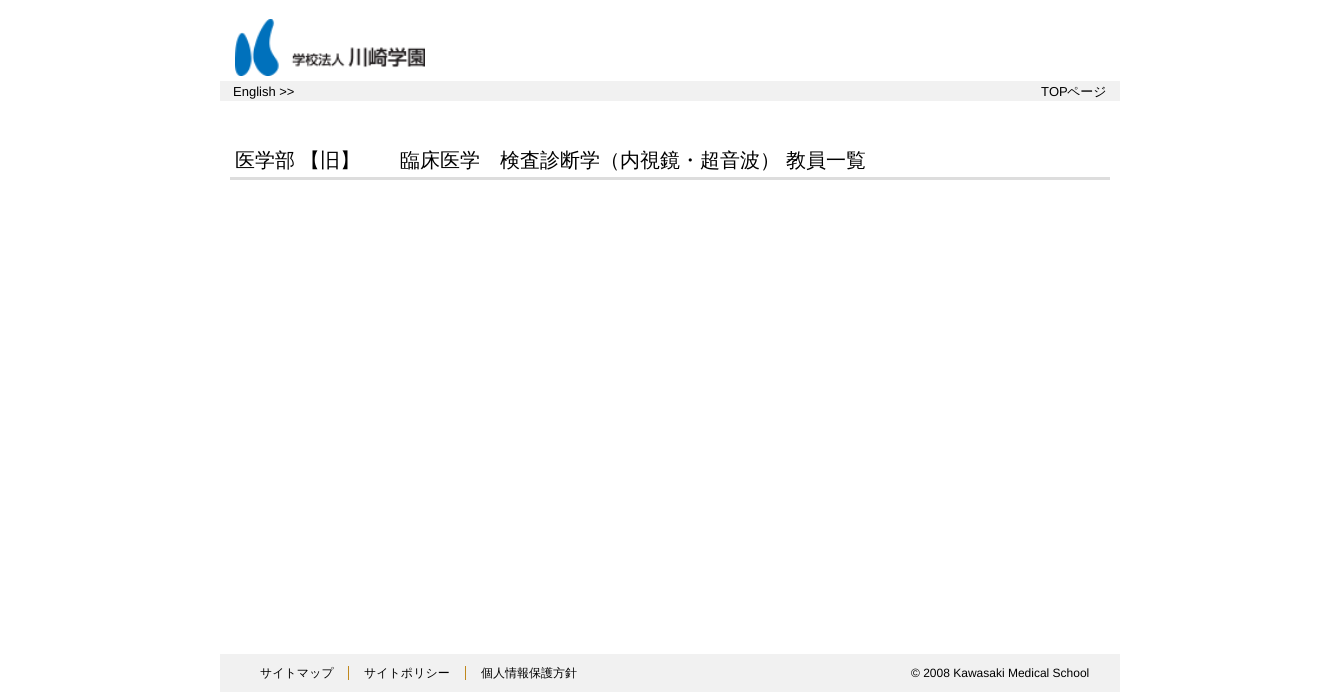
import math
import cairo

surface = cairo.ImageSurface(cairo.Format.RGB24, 1339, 692)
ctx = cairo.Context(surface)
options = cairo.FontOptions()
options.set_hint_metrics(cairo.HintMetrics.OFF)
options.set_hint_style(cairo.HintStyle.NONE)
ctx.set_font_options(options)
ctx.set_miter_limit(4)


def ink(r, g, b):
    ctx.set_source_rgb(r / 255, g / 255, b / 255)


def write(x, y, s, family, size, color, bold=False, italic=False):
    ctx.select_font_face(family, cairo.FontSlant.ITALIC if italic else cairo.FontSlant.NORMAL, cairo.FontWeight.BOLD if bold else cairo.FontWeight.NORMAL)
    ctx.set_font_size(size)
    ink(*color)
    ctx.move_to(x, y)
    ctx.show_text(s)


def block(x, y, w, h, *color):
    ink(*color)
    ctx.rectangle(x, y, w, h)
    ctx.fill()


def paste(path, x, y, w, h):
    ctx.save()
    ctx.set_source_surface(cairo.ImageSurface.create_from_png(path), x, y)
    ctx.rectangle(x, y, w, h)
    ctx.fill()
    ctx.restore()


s1 = dict(family="Liberation Sans", size=13, color=(0, 0, 0))
s2 = dict(family="WenQuanYi Zen Hei Medium", size=13, color=(0, 0, 0))
s3 = dict(family="WenQuanYi Zen Hei Medium", size=20, color=(0, 0, 0))
s4 = dict(family="WenQuanYi Zen Hei Medium", size=12, color=(0, 0, 0))
s5 = dict(family="Liberation Sans", size=12, color=(0, 0, 0))

ink(255, 255, 255)
ctx.paint()
paste("pic1.png", 235, 19, 190, 57)
block(220, 81, 900, 20, 241, 241, 241)
write(233, 96, "English >>", **s1)
write(1041, 96, "TOP", **s1)
write(1067, 96, "ページ", **s2)
block(230, 177, 880, 3, 221, 221, 221)
write(235, 167, "医学部", **s3)
write(300, 167, "【旧】　　臨床医学　検査診断学（内視鏡・超音波）", **s3)
write(786, 167, "教員一覧", **s3)
block(220, 654, 900, 38, 241, 241, 241)
write(260, 677, "サイトマップ", **s4)
block(348, 666, 1, 14, 192, 136, 29)
write(364, 677, "サイトポリシー", **s4)
block(465, 666, 1, 14, 192, 136, 29)
write(481, 677, "個人情報保護方針", **s4)
write(911, 677, "© 2008 Kawasaki Medical School", **s5)
surface.write_to_png("screenshot.png")
